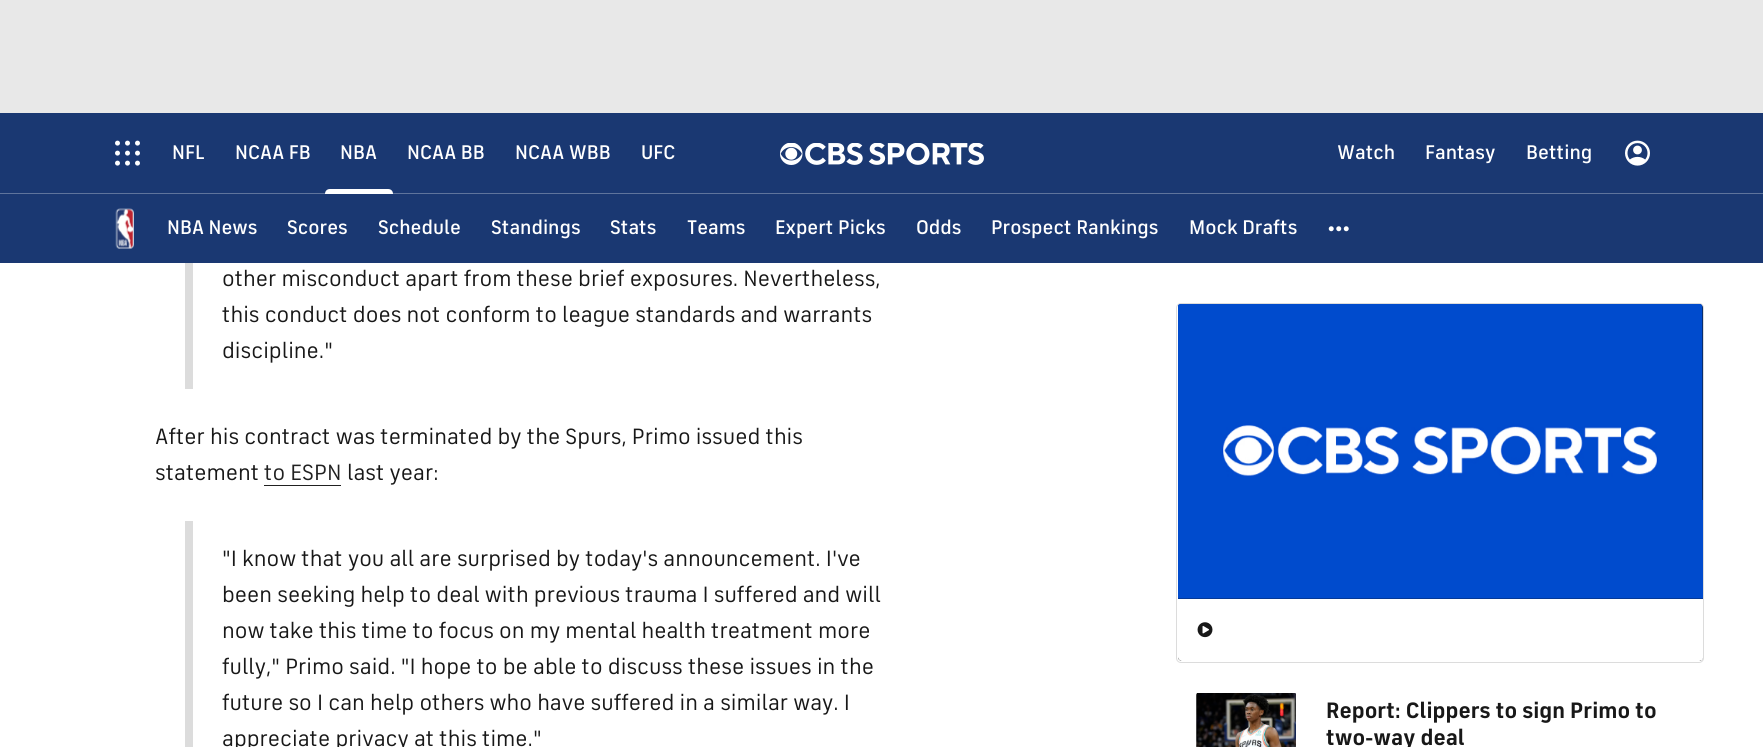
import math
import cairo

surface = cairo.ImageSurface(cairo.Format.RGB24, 1763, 747)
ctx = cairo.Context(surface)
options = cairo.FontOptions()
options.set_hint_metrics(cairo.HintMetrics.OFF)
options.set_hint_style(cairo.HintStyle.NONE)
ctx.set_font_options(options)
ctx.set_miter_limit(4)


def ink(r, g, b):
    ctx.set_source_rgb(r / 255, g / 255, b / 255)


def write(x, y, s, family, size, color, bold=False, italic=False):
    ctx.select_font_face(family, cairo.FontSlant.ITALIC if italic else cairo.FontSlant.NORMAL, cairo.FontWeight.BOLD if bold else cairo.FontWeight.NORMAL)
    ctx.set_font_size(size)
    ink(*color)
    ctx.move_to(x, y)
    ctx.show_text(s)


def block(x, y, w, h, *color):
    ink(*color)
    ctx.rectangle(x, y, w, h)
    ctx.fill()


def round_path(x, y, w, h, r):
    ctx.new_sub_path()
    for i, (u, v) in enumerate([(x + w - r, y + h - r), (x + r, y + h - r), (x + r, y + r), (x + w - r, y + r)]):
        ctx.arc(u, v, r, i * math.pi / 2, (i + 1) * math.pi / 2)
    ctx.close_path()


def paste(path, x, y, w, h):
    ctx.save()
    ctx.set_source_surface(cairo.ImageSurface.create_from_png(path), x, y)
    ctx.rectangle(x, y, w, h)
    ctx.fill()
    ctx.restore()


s1 = dict(family="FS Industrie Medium", size=20, color=(255, 255, 255))
s2 = dict(family="FS Industrie", size=22.5, color=(24, 24, 24))
s3 = dict(family="FS Industrie", size=22.5, color=(33, 33, 33))
s4 = dict(family="FS Industrie", size=22.5, color=(24, 24, 24), bold=True)

ink(255, 255, 255)
ctx.paint()
block(0, 0, 1763, 113, 232, 232, 232)
block(0, 113, 1763, 80, 26, 56, 114)
block(0, 193, 1763, 1, 95, 116, 156)
paste("pic1.png", 115, 140, 25, 26)
write(172, 159, "NFL", **s1)
write(235, 159, "NCAA FB", **s1)
write(340, 159, "NBA", **s1)
ctx.new_path()
ctx.move_to(330, 189)
ctx.line_to(388, 189)
ctx.curve_to(391, 189, 393, 191, 393, 194)
ctx.line_to(325, 194)
ctx.curve_to(325, 191, 327, 189, 330, 189)
ctx.close_path()
ctx.fill()
write(407, 159, "NCAA BB", **s1)
write(515, 159, "NCAA WBB", **s1)
write(641, 159, "UFC", **s1)
paste("pic2.png", 780, 143, 23, 22)
paste("pic3.png", 805, 143, 179, 22)
write(1337, 159, "Watch", **s1)
write(1425, 159, "Fantasy", **s1)
write(1526, 159, "Betting", **s1)
paste("pic4.png", 1625, 140, 25, 26)
block(0, 194, 1763, 69, 26, 56, 114)
paste("pic5.png", 115, 208, 19, 41)
write(167, 234, "NBA News", **s1)
write(287, 234, "Scores", **s1)
write(378, 234, "Schedule", **s1)
write(491, 234, "Standings", **s1)
write(610, 234, "Stats", **s1)
write(687, 234, "Teams", **s1)
write(775, 234, "Expert Picks", **s1)
write(916, 234, "Odds", **s1)
write(991, 234, "Prospect Rankings", **s1)
write(1189, 234, "Mock Drafts", **s1)
paste("pic6.png", 1328, 226, 21, 6)
block(185, 263, 8, 126, 220, 220, 220)
write(222, 286, "other misconduct apart from these brief exposures. Nevertheless,", **s2)
write(222, 322, "this conduct does not conform to league standards and warrants", **s2)
write(222, 358, "discipline.\"", **s2)
write(155, 444, "After his contract was terminated by the Spurs, Primo issued this", **s2)
write(155, 480, "statement", **s2)
write(264, 480, "to ESPN", **s3)
block(264, 485, 77, 1, 33, 33, 33)
write(347, 480, "last year:", **s2)
block(185, 521, 8, 226, 220, 220, 220)
write(222, 566, "\"I know that you all are surprised by today's announcement. I've", **s2)
write(222, 602, "been seeking help to deal with previous trauma I suffered and will", **s2)
write(222, 638, "now take this time to focus on my mental health treatment more", **s2)
write(222, 674, "fully,\" Primo said. \"I hope to be able to discuss these issues in the", **s2)
write(222, 710, "future so I can help others who have suffered in a similar way. I", **s2)
write(222, 746, "appreciate privacy at this time.\"", **s2)
round_path(1176.5, 303.5, 527, 359, 4.5)
ink(220, 220, 220)
ctx.set_line_width(1)
ctx.stroke()
ink(16, 16, 16)
round_path(1178, 304, 525, 357, 4)
ctx.fill()
paste("pic7.png", 1178, 304, 525, 295)
ink(255, 255, 255)
ctx.new_path()
ctx.move_to(1178, 599)
ctx.line_to(1703, 599)
ctx.line_to(1703, 657)
ctx.curve_to(1703, 659, 1701, 661, 1699, 661)
ctx.line_to(1182, 661)
ctx.curve_to(1180, 661, 1178, 659, 1178, 657)
ctx.close_path()
ctx.fill()
paste("pic8.png", 1197, 622, 16, 16)
ctx.save()
round_path(1178, 304, 525, 357, 4)
ctx.clip()
gradient = cairo.LinearGradient(1178, 629, 1703, 629)
gradient.add_color_stop_rgba(0.9, 1, 1, 1, 0)
gradient.add_color_stop_rgba(1, 1, 1, 1, 1)
ctx.set_source(gradient)
ctx.rectangle(1652, 599, 51, 61)
ctx.fill()
ctx.restore()
paste("pic9.png", 1196, 693, 100, 54)
write(1326, 718, "Report: Clippers to sign Primo to", **s4)
write(1326, 745, "two-way deal", **s4)
surface.write_to_png("screenshot.png")
